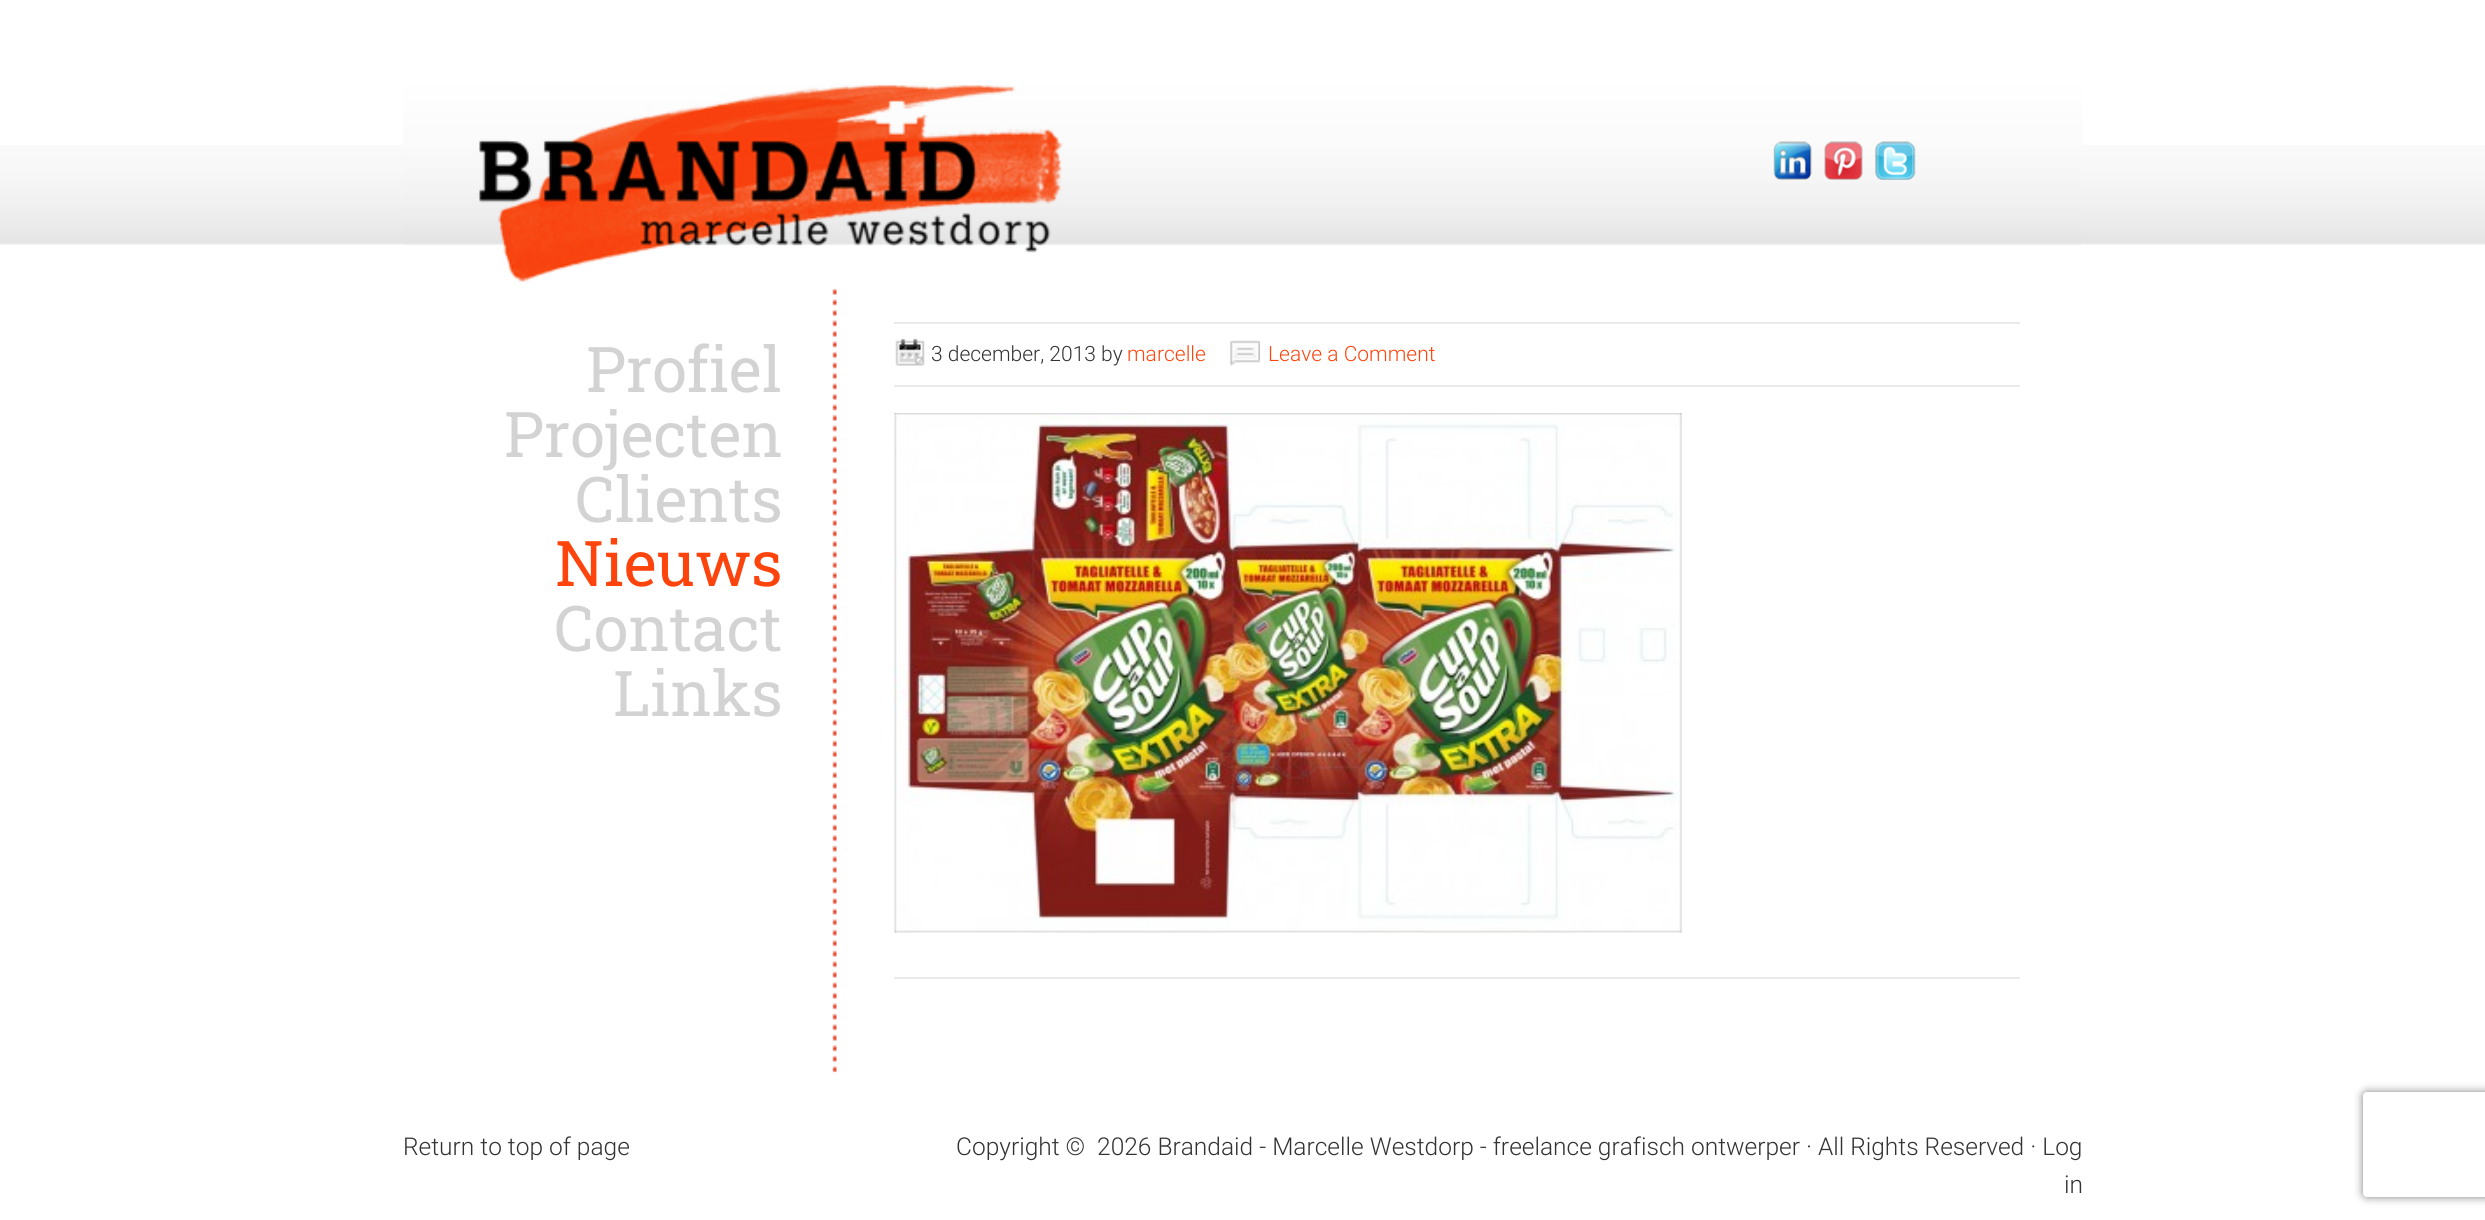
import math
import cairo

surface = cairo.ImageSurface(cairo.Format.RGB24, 2485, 1220)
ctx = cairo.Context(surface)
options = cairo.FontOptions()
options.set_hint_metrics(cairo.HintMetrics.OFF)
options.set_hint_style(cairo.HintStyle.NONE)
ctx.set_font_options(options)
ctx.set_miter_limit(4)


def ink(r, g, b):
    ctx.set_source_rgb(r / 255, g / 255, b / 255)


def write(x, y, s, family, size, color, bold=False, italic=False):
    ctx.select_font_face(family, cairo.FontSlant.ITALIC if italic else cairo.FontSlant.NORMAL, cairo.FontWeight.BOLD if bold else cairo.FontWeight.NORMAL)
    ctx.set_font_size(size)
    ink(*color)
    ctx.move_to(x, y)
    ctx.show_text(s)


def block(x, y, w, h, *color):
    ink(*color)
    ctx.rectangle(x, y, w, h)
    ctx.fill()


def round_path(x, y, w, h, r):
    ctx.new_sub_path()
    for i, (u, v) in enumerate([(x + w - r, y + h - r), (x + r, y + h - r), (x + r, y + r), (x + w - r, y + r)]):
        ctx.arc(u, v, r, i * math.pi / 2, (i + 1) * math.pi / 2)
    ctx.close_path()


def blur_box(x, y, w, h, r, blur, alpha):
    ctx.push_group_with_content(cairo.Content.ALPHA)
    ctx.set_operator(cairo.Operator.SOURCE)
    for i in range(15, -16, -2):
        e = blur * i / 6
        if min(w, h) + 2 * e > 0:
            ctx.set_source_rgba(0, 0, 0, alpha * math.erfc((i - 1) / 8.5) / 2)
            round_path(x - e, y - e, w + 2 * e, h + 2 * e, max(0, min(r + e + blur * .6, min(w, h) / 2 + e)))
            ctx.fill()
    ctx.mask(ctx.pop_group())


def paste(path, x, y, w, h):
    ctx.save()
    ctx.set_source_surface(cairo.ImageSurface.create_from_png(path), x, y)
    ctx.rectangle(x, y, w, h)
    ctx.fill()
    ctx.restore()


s1 = dict(family="Roboto Slab", size=63, color=(211, 211, 211))
s2 = dict(family="Roboto Slab", size=63, color=(253, 68, 12))
s3 = dict(family="Roboto Light", size=21, color=(51, 51, 51))
s4 = dict(family="Roboto Light", size=21, color=(253, 68, 12))
s5 = dict(family="Roboto Light", size=24.5, color=(51, 51, 51))

ink(255, 255, 255)
ctx.paint()
paste("pic1.png", 0, 145, 2485, 100)
paste("pic2.png", 403, 85, 1679, 197)
paste("pic3.png", 1773, 141, 39, 39)
paste("pic4.png", 1824, 141, 39, 39)
paste("pic5.png", 1875, 141, 41, 39)
write(586, 392, "Profiel", **s1)
write(504, 457, "Projecten", **s1)
write(575, 522, "Clients", **s1)
write(555, 586, "Nieuws", **s2)
write(554, 651, "Contact", **s1)
write(613, 716, "Links", **s1)
paste("pic6.png", 832, 288, 5, 785)
block(894, 322, 1126, 2, 234, 234, 234)
block(894, 385, 1126, 2, 234, 234, 234)
paste("pic7.png", 895, 338, 30, 28)
write(931, 361, "3 december, 2013 by", **s3)
write(1127, 361, "marcelle", **s4)
paste("pic8.png", 1230, 340, 30, 26)
write(1268, 361, "Leave a Comment", **s4)
paste("pic9.png", 894, 413, 788, 520)
block(894, 977, 1126, 2, 234, 234, 234)
write(403, 1155, "Return to top of page", **s5)
write(956, 1155, "Copyright ©  2026 Brandaid - Marcelle Westdorp - freelance grafisch ontwerper · All Rights Reserved · Log", **s5)
write(2064, 1193, "in", **s5)
ctx.save()
ctx.set_fill_rule(cairo.FillRule.EVEN_ODD)
ctx.new_path()
ctx.move_to(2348, 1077)
ctx.line_to(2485, 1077)
ctx.line_to(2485, 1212)
ctx.line_to(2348, 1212)
ctx.close_path()
ctx.move_to(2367, 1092)
ctx.line_to(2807, 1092)
ctx.curve_to(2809, 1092, 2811, 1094, 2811, 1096)
ctx.line_to(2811, 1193)
ctx.curve_to(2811, 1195, 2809, 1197, 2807, 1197)
ctx.line_to(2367, 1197)
ctx.curve_to(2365, 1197, 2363, 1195, 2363, 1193)
ctx.line_to(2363, 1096)
ctx.curve_to(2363, 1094, 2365, 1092, 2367, 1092)
ctx.close_path()
ctx.clip()
ink(128, 128, 128)
blur_box(2363, 1092, 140, 105, 4, 4.5, 1)
ctx.restore()
surface.write_to_png("screenshot.png")
